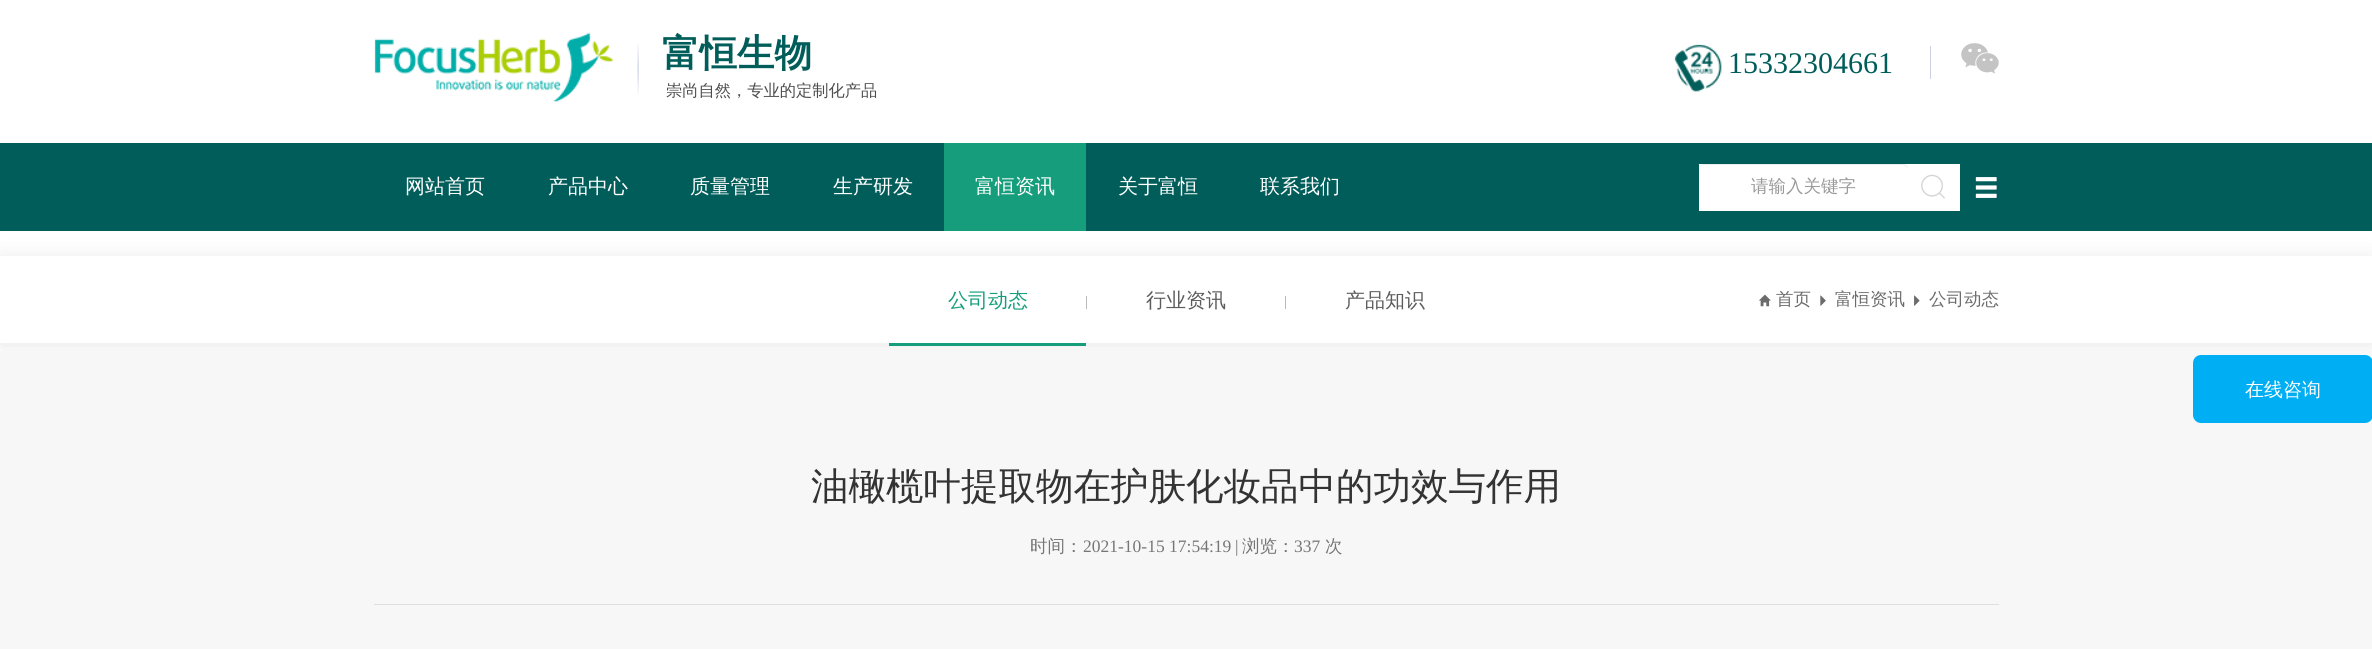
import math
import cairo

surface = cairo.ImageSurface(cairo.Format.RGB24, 2372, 649)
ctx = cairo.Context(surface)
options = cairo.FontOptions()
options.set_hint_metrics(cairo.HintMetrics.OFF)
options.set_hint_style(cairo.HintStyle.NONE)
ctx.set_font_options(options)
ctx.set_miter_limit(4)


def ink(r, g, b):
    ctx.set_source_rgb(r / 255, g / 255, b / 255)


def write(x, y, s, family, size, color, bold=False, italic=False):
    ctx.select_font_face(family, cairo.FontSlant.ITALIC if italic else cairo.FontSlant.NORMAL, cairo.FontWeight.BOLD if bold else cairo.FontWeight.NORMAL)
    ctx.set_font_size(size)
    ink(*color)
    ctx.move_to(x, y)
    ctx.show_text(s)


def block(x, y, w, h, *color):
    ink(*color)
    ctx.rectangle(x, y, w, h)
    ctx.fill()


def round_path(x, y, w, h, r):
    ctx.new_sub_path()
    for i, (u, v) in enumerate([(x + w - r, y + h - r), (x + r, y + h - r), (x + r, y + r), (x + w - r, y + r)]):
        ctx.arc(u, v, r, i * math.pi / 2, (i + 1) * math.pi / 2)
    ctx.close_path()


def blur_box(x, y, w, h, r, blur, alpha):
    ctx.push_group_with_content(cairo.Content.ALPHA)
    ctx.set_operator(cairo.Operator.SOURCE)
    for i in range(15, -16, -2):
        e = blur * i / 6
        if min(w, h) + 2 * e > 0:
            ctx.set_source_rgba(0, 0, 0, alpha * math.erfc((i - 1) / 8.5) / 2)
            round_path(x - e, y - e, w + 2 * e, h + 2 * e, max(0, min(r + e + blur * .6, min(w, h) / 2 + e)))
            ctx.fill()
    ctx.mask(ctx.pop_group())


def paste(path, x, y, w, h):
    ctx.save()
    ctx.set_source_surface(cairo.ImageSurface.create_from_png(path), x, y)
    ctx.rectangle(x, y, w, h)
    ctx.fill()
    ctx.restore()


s1 = dict(family="WenQuanYi Zen Hei", size=37.5, color=(0, 93, 90), bold=True)
s2 = dict(family="WenQuanYi Zen Hei Medium", size=16.25, color=(77, 77, 78))
s3 = dict(family="Liberation Serif", size=30, color=(0, 93, 90))
s4 = dict(family="WenQuanYi Zen Hei Medium", size=20, color=(255, 255, 255))
s5 = dict(family="WenQuanYi Zen Hei Medium", size=17.5, color=(153, 153, 153))
s6 = dict(family="WenQuanYi Zen Hei Medium", size=20, color=(22, 158, 124))
s7 = dict(family="WenQuanYi Zen Hei Medium", size=20, color=(92, 92, 92))
s8 = dict(family="WenQuanYi Zen Hei Medium", size=17.5, color=(107, 107, 107))
s9 = dict(family="WenQuanYi Zen Hei Medium", size=19, color=(255, 255, 255))
s10 = dict(family="WenQuanYi Zen Hei Medium", size=37.5, color=(51, 51, 51))
s11 = dict(family="WenQuanYi Zen Hei Medium", size=17.5, color=(118, 118, 118))
s12 = dict(family="Liberation Serif", size=17.5, color=(118, 118, 118))

ink(255, 255, 255)
ctx.paint()
paste("pic1.png", 374, 32, 239, 70)
paste("pic2.png", 637, 43, 2, 52)
write(662, 66, "富恒生物", **s1)
write(666, 96, "崇尚自然，专业的定制化产品", **s2)
paste("pic3.png", 1674, 44, 48, 48)
write(1728, 73, "15332304661", **s3)
block(1930, 46, 1, 33, 204, 210, 227)
paste("pic4.png", 1961, 43, 38, 31)
ink(230, 230, 230)
blur_box(0, 259, 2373, 86, 0, 11, 1)
block(0, 143, 2372, 88, 0, 93, 90)
write(405, 193, "网站首页", **s4)
write(548, 193, "产品中心", **s4)
write(690, 193, "质量管理", **s4)
write(833, 193, "生产研发", **s4)
block(944, 143, 142, 88, 22, 158, 124)
write(975, 193, "富恒资讯", **s4)
write(1118, 193, "关于富恒", **s4)
write(1260, 193, "联系我们", **s4)
block(1699, 164, 261, 47, 255, 255, 255)
ink(236, 236, 236)
ctx.new_path()
ctx.move_to(1704, 165)
ctx.line_to(1902, 165)
ctx.curve_to(1905, 165, 1908, 167, 1908, 170)
ctx.line_to(1908, 169)
ctx.curve_to(1908, 166, 1906, 164, 1903, 164)
ctx.line_to(1704, 164)
ctx.curve_to(1701, 164, 1699, 166, 1699, 169)
ctx.line_to(1699, 170)
ctx.curve_to(1699, 167, 1701, 165, 1704, 165)
ctx.close_path()
ctx.fill()
write(1751, 192, "请输入关键字", **s5)
paste("pic5.png", 1921, 174, 24, 25)
paste("pic6.png", 1975, 177, 22, 21)
block(0, 256, 2372, 87, 255, 255, 255)
block(889, 343, 197, 3, 22, 158, 124)
write(948, 307, "公司动态", **s6)
block(1086, 296, 1, 13, 185, 185, 185)
write(1146, 307, "行业资讯", **s7)
block(1285, 296, 1, 13, 185, 185, 185)
write(1345, 307, "产品知识", **s7)
paste("pic7.png", 1759, 294, 12, 13)
write(1776, 305, "首页", **s8)
paste("pic8.png", 1820, 295, 6, 11)
write(1835, 305, "富恒资讯", **s8)
paste("pic9.png", 1914, 295, 6, 11)
write(1929, 305, "公司动态", **s8)
block(0, 351, 2372, 298, 247, 247, 247)
ink(0, 174, 243)
round_path(2193, 355, 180, 68, 8)
ctx.fill()
write(2245, 396, "在线咨询", **s9)
write(811, 499, "油橄榄叶提取物在护肤化妆品中的功效与作用", **s10)
block(374, 604, 1625, 1, 223, 223, 223)
write(1030, 552, "时间：", **s11)
write(1083, 552, "2021-10-15 17:54:19", **s12)
write(1235, 552, "|", **s12)
write(1242, 552, "浏览：", **s11)
write(1294, 552, "337", **s12)
write(1325, 552, "次", **s11)
surface.write_to_png("screenshot.png")
